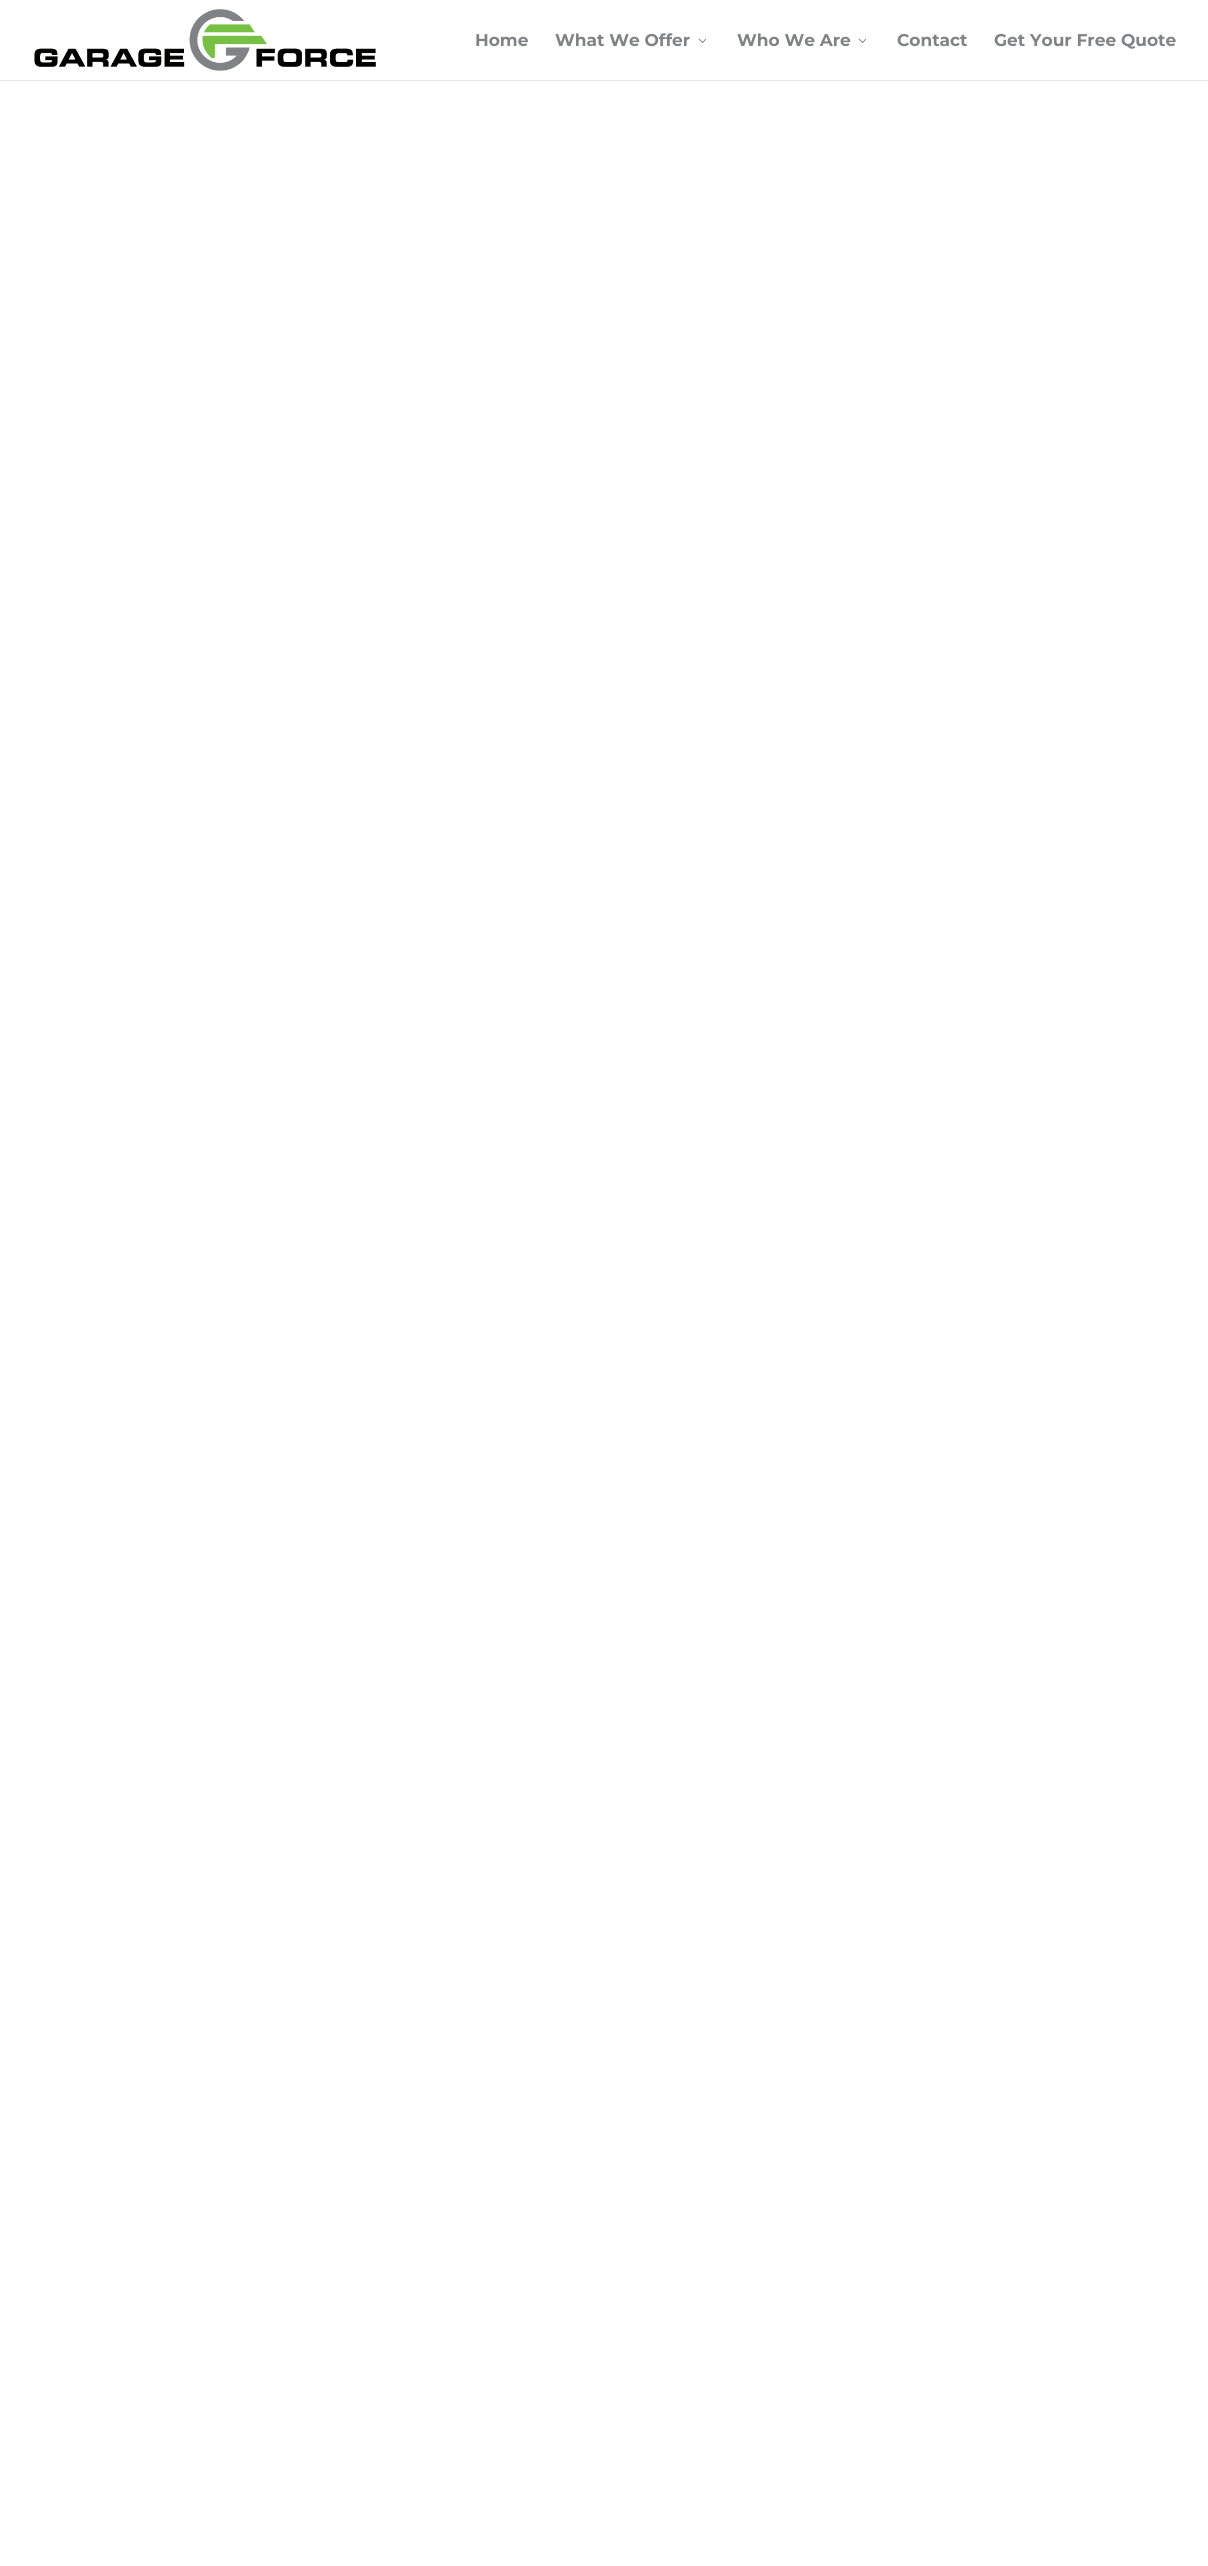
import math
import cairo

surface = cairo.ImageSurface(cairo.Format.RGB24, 1208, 2566)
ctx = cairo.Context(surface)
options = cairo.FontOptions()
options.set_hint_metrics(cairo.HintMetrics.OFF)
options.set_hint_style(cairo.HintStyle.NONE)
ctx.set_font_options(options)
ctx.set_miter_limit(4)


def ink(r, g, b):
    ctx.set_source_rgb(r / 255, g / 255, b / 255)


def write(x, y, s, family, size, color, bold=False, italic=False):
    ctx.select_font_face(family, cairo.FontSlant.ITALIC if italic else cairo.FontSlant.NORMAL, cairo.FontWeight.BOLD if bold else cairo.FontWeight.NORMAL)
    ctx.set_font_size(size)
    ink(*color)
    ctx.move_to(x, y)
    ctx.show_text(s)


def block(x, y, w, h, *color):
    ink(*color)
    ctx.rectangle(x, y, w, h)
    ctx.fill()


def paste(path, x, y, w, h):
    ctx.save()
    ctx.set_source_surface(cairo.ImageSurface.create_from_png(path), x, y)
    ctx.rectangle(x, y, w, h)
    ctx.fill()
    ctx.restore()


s1 = dict(family="Montserrat", size=17, color=(128, 130, 133), bold=True)

ink(255, 255, 255)
ctx.paint()
block(0, 80, 1208, 1, 230, 230, 230)
paste("pic1.png", 34, 9, 342, 62)
write(475, 46, "Home", **s1)
write(555, 46, "What We Offer", **s1)
paste("pic2.png", 698, 38, 9, 5)
write(737, 46, "Who We Are", **s1)
paste("pic2.png", 858, 38, 9, 5)
write(897, 46, "Contact", **s1)
write(994, 46, "Get Your Free Quote", **s1)
surface.write_to_png("screenshot.png")
